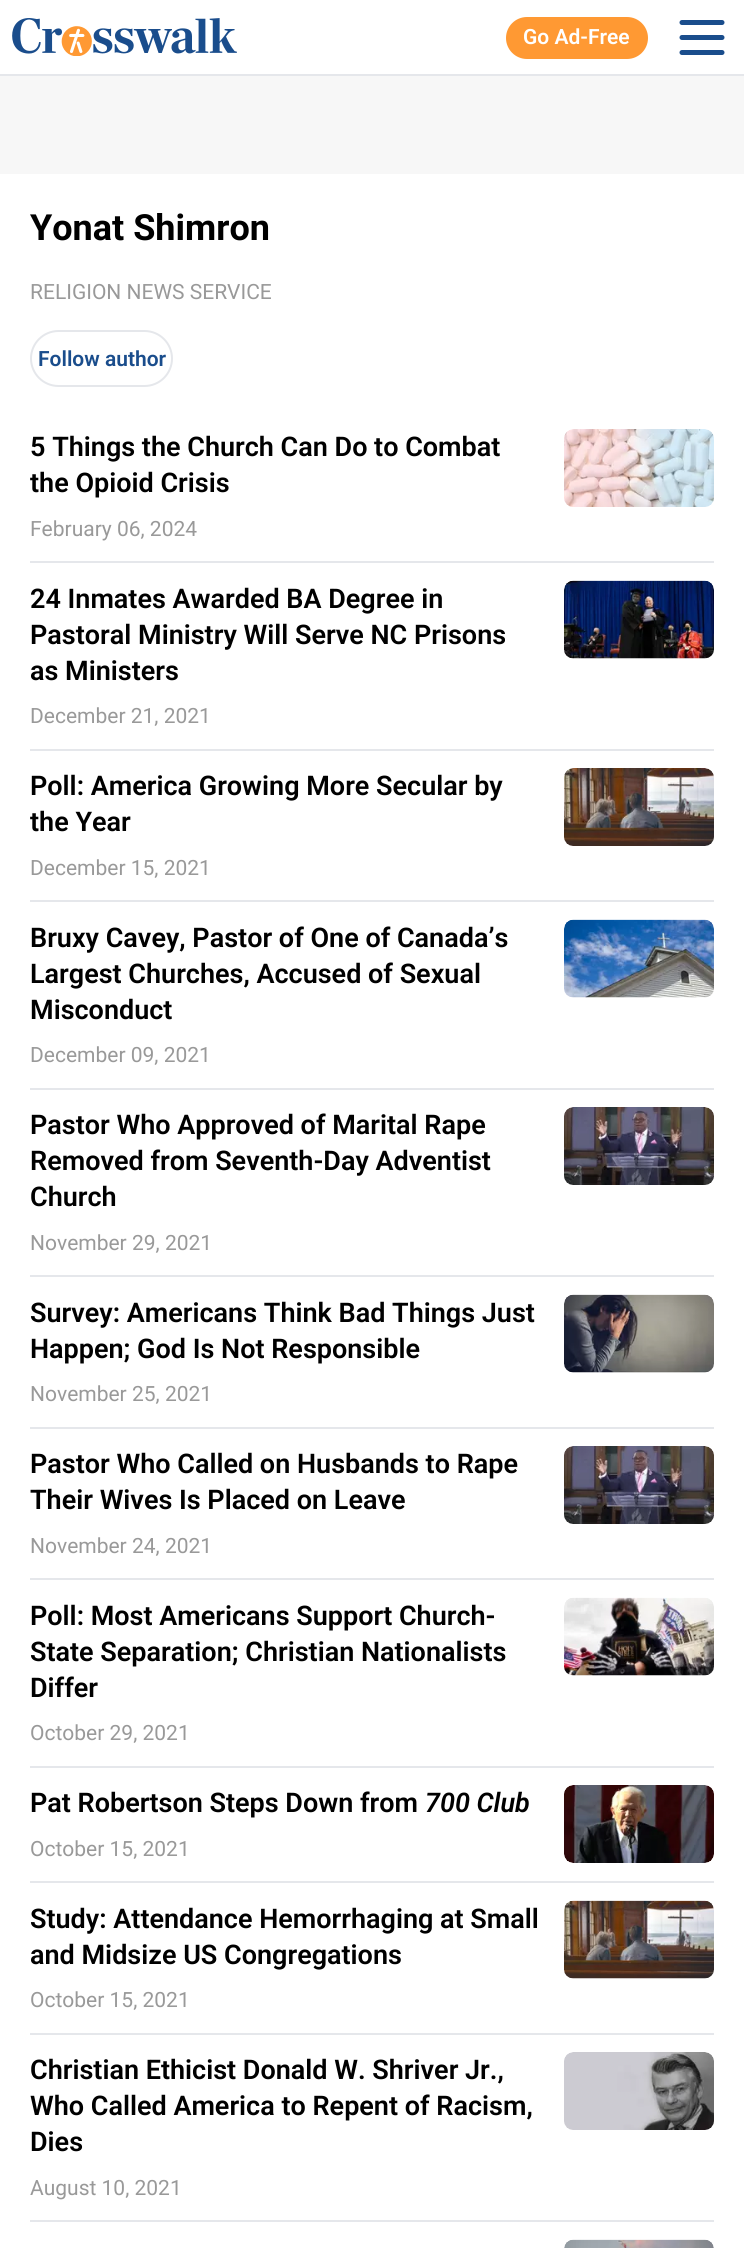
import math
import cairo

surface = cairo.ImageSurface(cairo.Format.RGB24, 744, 2248)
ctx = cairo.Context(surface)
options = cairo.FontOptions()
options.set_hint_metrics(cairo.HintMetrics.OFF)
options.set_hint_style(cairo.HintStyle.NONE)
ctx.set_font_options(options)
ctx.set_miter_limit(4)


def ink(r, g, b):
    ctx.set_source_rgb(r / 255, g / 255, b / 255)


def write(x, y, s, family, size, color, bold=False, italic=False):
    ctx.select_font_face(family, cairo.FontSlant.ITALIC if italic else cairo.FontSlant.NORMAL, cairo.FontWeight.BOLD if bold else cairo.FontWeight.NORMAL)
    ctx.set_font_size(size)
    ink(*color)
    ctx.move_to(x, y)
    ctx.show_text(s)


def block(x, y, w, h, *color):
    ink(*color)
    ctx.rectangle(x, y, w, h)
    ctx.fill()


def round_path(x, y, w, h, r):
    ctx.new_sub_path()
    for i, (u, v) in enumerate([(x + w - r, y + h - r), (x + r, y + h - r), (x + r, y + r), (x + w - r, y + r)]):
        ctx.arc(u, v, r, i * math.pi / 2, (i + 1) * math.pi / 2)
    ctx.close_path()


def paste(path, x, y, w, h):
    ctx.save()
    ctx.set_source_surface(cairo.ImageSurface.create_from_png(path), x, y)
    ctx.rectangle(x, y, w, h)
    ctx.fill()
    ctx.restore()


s1 = dict(family="Roboto SemiBold", size=21, color=(255, 255, 255))
s2 = dict(family="Roboto", size=36, color=(0, 0, 0), bold=True)
s3 = dict(family="Roboto", size=21, color=(153, 153, 153))
s4 = dict(family="Roboto SemiBold", size=21, color=(26, 77, 140))
s5 = dict(family="Roboto SemiBold", size=27, color=(0, 0, 0))
s6 = dict(family="Roboto SemiBold", size=27, color=(0, 0, 0), italic=True)

ink(255, 255, 255)
ctx.paint()
block(0, 74, 744, 2, 229, 231, 235)
paste("pic1.png", 12, 18, 225, 38)
ink(255, 153, 51)
round_path(506, 17, 142, 42, 21)
ctx.fill()
write(523, 44, "Go Ad-Free", **s1)
ctx.new_path()
ctx.move_to(682, 22.5)
ctx.line_to(722, 22.5)
ctx.move_to(682, 37.5)
ctx.line_to(722, 37.5)
ctx.move_to(682, 52.5)
ctx.line_to(722, 52.5)
ink(26, 77, 140)
ctx.set_line_width(5)
ctx.set_line_cap(cairo.LineCap.ROUND)
ctx.set_line_join(cairo.LineJoin.ROUND)
ctx.stroke()
block(0, 76, 744, 98, 247, 247, 247)
write(30, 240, "Yonat Shimron", **s2)
write(30, 299, "RELIGION NEWS SERVICE", **s3)
round_path(31, 331, 141, 55, 27.5)
ink(229, 231, 235)
ctx.set_line_width(2)
ctx.set_line_cap(cairo.LineCap.BUTT)
ctx.set_line_join(cairo.LineJoin.MITER)
ctx.stroke()
write(38, 366, "Follow author", **s4)
block(30, 561, 684, 2, 229, 231, 235)
write(30, 456, "5 Things the Church Can Do to Combat", **s5)
write(30, 492, "the Opioid Crisis", **s5)
write(30, 536, "February 06, 2024", **s3)
paste("pic2.png", 564, 429, 150, 78)
block(30, 749, 684, 2, 229, 231, 235)
write(30, 608, "24 Inmates Awarded BA Degree in", **s5)
write(30, 644, "Pastoral Ministry Will Serve NC Prisons", **s5)
write(30, 680, "as Ministers", **s5)
write(30, 723, "December 21, 2021", **s3)
paste("pic3.png", 564, 580, 150, 79)
block(30, 900, 684, 2, 229, 231, 235)
write(30, 795, "Poll: America Growing More Secular by", **s5)
write(30, 831, "the Year", **s5)
write(30, 875, "December 15, 2021", **s3)
paste("pic4.png", 564, 768, 150, 78)
block(30, 1088, 684, 2, 229, 231, 235)
write(30, 947, "Bruxy Cavey, Pastor of One of Canada’s", **s5)
write(30, 983, "Largest Churches, Accused of Sexual", **s5)
write(30, 1019, "Misconduct", **s5)
write(30, 1062, "December 09, 2021", **s3)
paste("pic5.png", 564, 919, 150, 79)
block(30, 1275, 684, 2, 229, 231, 235)
write(30, 1134, "Pastor Who Approved of Marital Rape", **s5)
write(30, 1170, "Removed from Seventh-Day Adventist", **s5)
write(30, 1206, "Church", **s5)
write(30, 1250, "November 29, 2021", **s3)
paste("pic6.png", 564, 1107, 150, 78)
block(30, 1427, 684, 2, 229, 231, 235)
write(30, 1322, "Survey: Americans Think Bad Things Just", **s5)
write(30, 1358, "Happen; God Is Not Responsible", **s5)
write(30, 1401, "November 25, 2021", **s3)
paste("pic7.png", 564, 1294, 150, 79)
block(30, 1578, 684, 2, 229, 231, 235)
write(30, 1473, "Pastor Who Called on Husbands to Rape", **s5)
write(30, 1509, "Their Wives Is Placed on Leave", **s5)
write(30, 1553, "November 24, 2021", **s3)
paste("pic8.png", 564, 1446, 150, 78)
block(30, 1766, 684, 2, 229, 231, 235)
write(30, 1625, "Poll: Most Americans Support Church-", **s5)
write(30, 1661, "State Separation; Christian Nationalists", **s5)
write(30, 1697, "Differ", **s5)
write(30, 1740, "October 29, 2021", **s3)
paste("pic9.png", 564, 1597, 150, 79)
block(30, 1881, 684, 2, 229, 231, 235)
write(30, 1812, "Pat Robertson Steps Down from", **s5)
write(425, 1812, "700 Club", **s6)
write(30, 1856, "October 15, 2021", **s3)
paste("pic10.png", 564, 1785, 150, 78)
block(30, 2033, 684, 2, 229, 231, 235)
write(30, 1928, "Study: Attendance Hemorrhaging at Small", **s5)
write(30, 1964, "and Midsize US Congregations", **s5)
write(30, 2007, "October 15, 2021", **s3)
paste("pic11.png", 564, 1900, 150, 79)
block(30, 2220, 684, 2, 229, 231, 235)
write(30, 2079, "Christian Ethicist Donald W. Shriver Jr.,", **s5)
write(30, 2115, "Who Called America to Repent of Racism,", **s5)
write(30, 2151, "Dies", **s5)
write(30, 2195, "August 10, 2021", **s3)
paste("pic12.png", 564, 2052, 150, 78)
paste("pic13.png", 564, 2239, 150, 9)
surface.write_to_png("screenshot.png")
